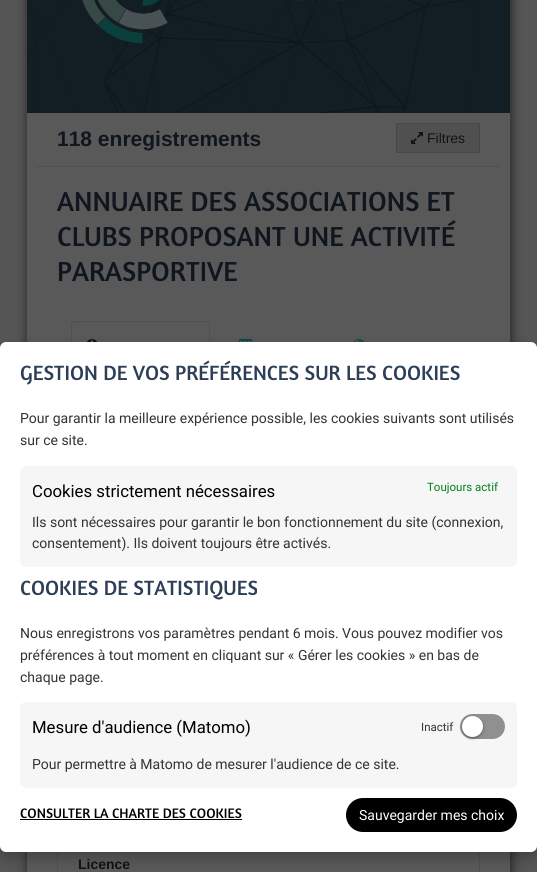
import math
import cairo

surface = cairo.ImageSurface(cairo.Format.RGB24, 537, 872)
ctx = cairo.Context(surface)
options = cairo.FontOptions()
options.set_hint_metrics(cairo.HintMetrics.OFF)
options.set_hint_style(cairo.HintStyle.NONE)
ctx.set_font_options(options)
ctx.set_miter_limit(4)


def ink(r, g, b):
    ctx.set_source_rgb(r / 255, g / 255, b / 255)


def write(x, y, s, family, size, color, bold=False, italic=False):
    ctx.select_font_face(family, cairo.FontSlant.ITALIC if italic else cairo.FontSlant.NORMAL, cairo.FontWeight.BOLD if bold else cairo.FontWeight.NORMAL)
    ctx.set_font_size(size)
    ink(*color)
    ctx.move_to(x, y)
    ctx.show_text(s)


def block(x, y, w, h, *color):
    ink(*color)
    ctx.rectangle(x, y, w, h)
    ctx.fill()


def round_path(x, y, w, h, r):
    ctx.new_sub_path()
    for i, (u, v) in enumerate([(x + w - r, y + h - r), (x + r, y + h - r), (x + r, y + r), (x + w - r, y + r)]):
        ctx.arc(u, v, r, i * math.pi / 2, (i + 1) * math.pi / 2)
    ctx.close_path()


def blur_box(x, y, w, h, r, blur, alpha):
    ctx.push_group_with_content(cairo.Content.ALPHA)
    ctx.set_operator(cairo.Operator.SOURCE)
    for i in range(15, -16, -2):
        e = blur * i / 6
        if min(w, h) + 2 * e > 0:
            ctx.set_source_rgba(0, 0, 0, alpha * math.erfc((i - 1) / 8.5) / 2)
            round_path(x - e, y - e, w + 2 * e, h + 2 * e, max(0, min(r + e + blur * .6, min(w, h) / 2 + e)))
            ctx.fill()
    ctx.mask(ctx.pop_group())


def paste(path, x, y, w, h):
    ctx.save()
    ctx.set_source_surface(cairo.ImageSurface.create_from_png(path), x, y)
    ctx.rectangle(x, y, w, h)
    ctx.fill()
    ctx.restore()


s1 = dict(family="Liberation Sans", size=21, color=(15, 22, 30), bold=True)
s2 = dict(family="Liberation Sans", size=14, color=(18, 18, 18))
s3 = dict(family="Amaranth", size=28, color=(15, 22, 30))
s4 = dict(family="Liberation Sans", size=14, color=(18, 18, 18), bold=True)
s5 = dict(family="Amaranth", size=21, color=(44, 63, 86))
s6 = dict(family="Roboto", size=14, color=(51, 51, 51))
s7 = dict(family="Roboto", size=16.75, color=(0, 0, 0))
s8 = dict(family="Roboto", size=11.5, color=(1, 130, 31))
s9 = dict(family="Roboto", size=11.5, color=(51, 51, 51))
s10 = dict(family="Amaranth", size=14, color=(0, 0, 0))
s11 = dict(family="Roboto", size=14, color=(255, 255, 255))

ink(86, 86, 86)
ctx.paint()
ink(30, 30, 30)
blur_box(28, -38, 483, 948, 20, 6, 1)
block(27, 113, 483, 759, 89, 89, 89)
block(27, 0, 483, 113, 19, 29, 36)
paste("pic1.png", 27, 0, 451, 113)
paste("pic2.png", 82, 0, 338, 44)
block(37, 166, 463, 1, 80, 80, 80)
write(57, 146, "118 enregistrements", **s1)
ink(80, 80, 80)
round_path(396.5, 123.5, 83, 29, 1)
ctx.fill_preserve()
ink(71, 71, 71)
ctx.set_line_width(1)
ctx.stroke()
paste("pic3.png", 411, 132, 12, 12)
write(427, 143, "Filtres", **s2)
write(57, 211, "ANNUAIRE DES ASSOCIATIONS ET", **s3)
write(57, 246, "CLUBS PROPOSANT UNE ACTIVITÉ", **s3)
write(57, 281, "PARASPORTIVE", **s3)
ink(80, 80, 80)
ctx.new_path()
ctx.move_to(74, 321)
ctx.line_to(72, 322)
ctx.line_to(73, 323)
ctx.curve_to(74, 321, 115, 322, 118, 322)
ctx.line_to(207, 322)
ctx.line_to(208, 323)
ctx.line_to(209, 322)
ctx.line_to(207, 321)
ctx.close_path()
ctx.fill()
ctx.new_path()
ctx.move_to(210, 373)
ctx.curve_to(210, 367, 211, 324, 209, 322)
ctx.line_to(208, 323)
ctx.curve_to(210, 324, 209, 366, 209, 372)
ctx.close_path()
ctx.fill()
ctx.new_path()
ctx.move_to(71, 373)
ctx.line_to(72, 372)
ctx.curve_to(72, 366, 71, 324, 73, 323)
ctx.line_to(72, 322)
ctx.line_to(71, 324)
ctx.close_path()
ctx.fill()
paste("pic4.png", 86, 339, 12, 3)
paste("pic5.png", 239, 339, 13, 3)
paste("pic6.png", 353, 339, 12, 3)
ctx.rectangle(57.5, 422.5, 422, 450)
ctx.stroke()
write(78, 869, "Licence", **s4)
ink(0, 0, 0)
blur_box(0, 348, 537, 510, 6, 6.5, 0.25)
ink(255, 255, 255)
round_path(0, 342, 537, 510, 6)
ctx.fill()
write(20, 380, "GESTION DE VOS PRÉFÉRENCES SUR LES COOKIES", **s5)
write(20, 423, "Pour garantir la meilleure expérience possible, les cookies suivants sont utilisés", **s6)
write(20, 445, "sur ce site.", **s6)
ink(246, 246, 246)
round_path(20, 466, 497, 101, 6)
ctx.fill()
write(32, 497, "Cookies strictement nécessaires", **s7)
write(427, 491, "Toujours actif", **s8)
write(32, 527, "Ils sont nécessaires pour garantir le bon fonctionnement du site (connexion,", **s6)
write(32, 548, "consentement). Ils doivent toujours être activés.", **s6)
write(20, 595, "COOKIES DE STATISTIQUES", **s5)
write(20, 638, "Nous enregistrons vos paramètres pendant 6 mois. Vous pouvez modifier vos", **s6)
write(20, 660, "préférences à tout moment en cliquant sur « Gérer les cookies » en bas de", **s6)
write(20, 682, "chaque page.", **s6)
ink(246, 246, 246)
round_path(20, 702, 497, 86, 6)
ctx.fill()
write(32, 733, "Mesure d'audience (Matomo)", **s7)
write(421, 731, "Inactif", **s9)
ink(144, 144, 144)
round_path(461, 715, 43, 23, 11.5)
ctx.fill_preserve()
ctx.set_line_width(2)
ctx.stroke()
ink(0, 0, 0)
blur_box(462, 717, 21, 21, 10.5, 1.5, 0.4)
ink(255, 255, 255)
ctx.arc(472.5, 726.5, 10.5, 0, 2 * math.pi)
ctx.fill()
write(32, 769, "Pour permettre à Matomo de mesurer l'audience de ce site.", **s6)
write(20, 818, "CONSULTER LA CHARTE DES COOKIES", **s10)
block(20, 819, 222, 1, 0, 0, 0)
round_path(346, 798, 171, 34, 17)
ctx.fill()
write(359, 820, "Sauvegarder mes choix", **s11)
surface.write_to_png("screenshot.png")
